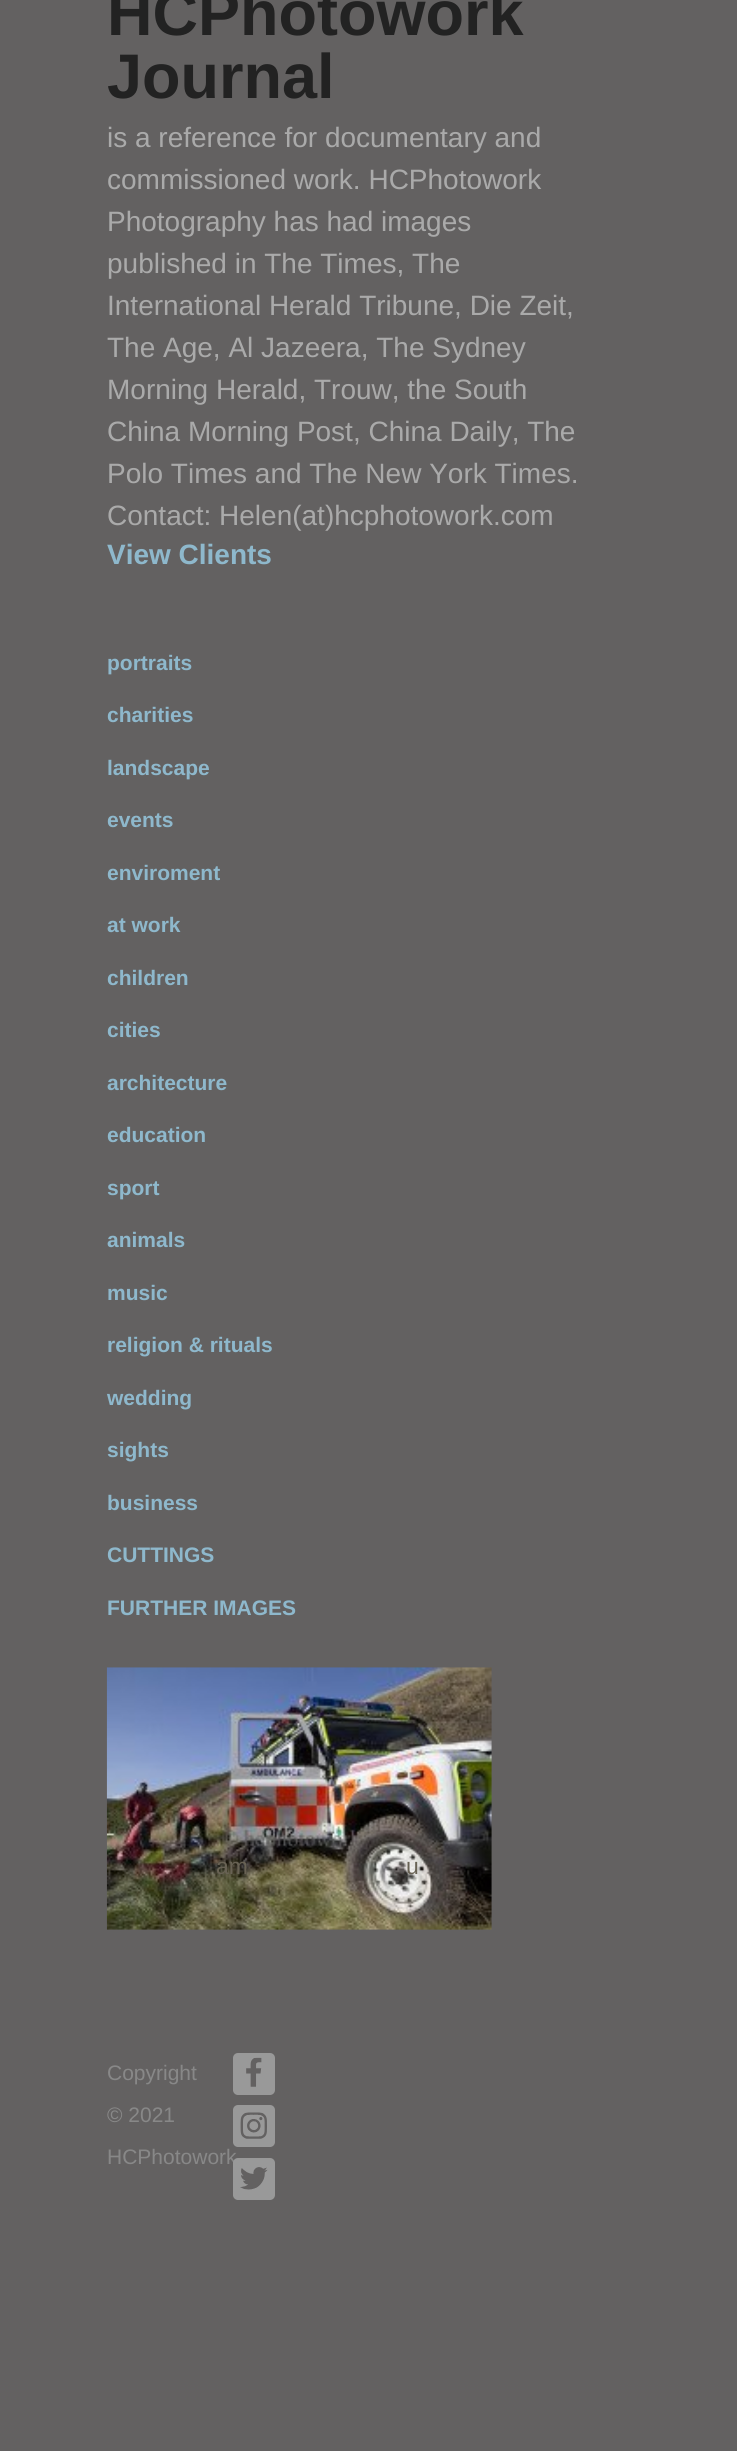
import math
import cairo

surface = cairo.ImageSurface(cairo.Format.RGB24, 737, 2451)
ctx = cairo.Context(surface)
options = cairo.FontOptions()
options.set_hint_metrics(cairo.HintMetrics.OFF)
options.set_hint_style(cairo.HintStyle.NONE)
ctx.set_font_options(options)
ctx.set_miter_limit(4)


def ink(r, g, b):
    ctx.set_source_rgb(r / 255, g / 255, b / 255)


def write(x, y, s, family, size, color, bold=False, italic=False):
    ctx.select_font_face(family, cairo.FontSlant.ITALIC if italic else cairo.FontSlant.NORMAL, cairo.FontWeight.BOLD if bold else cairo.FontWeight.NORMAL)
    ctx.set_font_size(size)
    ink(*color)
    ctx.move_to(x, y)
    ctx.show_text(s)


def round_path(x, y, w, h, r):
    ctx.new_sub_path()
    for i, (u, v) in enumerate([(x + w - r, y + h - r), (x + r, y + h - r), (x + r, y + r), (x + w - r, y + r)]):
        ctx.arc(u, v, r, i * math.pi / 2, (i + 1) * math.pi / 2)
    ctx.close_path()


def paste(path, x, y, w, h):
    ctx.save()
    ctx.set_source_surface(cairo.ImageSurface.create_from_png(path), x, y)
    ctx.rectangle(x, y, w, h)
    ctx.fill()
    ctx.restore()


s1 = dict(family="Liberation Sans", size=63, color=(34, 34, 34), bold=True)
s2 = dict(family="Liberation Sans", size=28, color=(170, 170, 170))
s3 = dict(family="Liberation Sans", size=28, color=(142, 184, 204), bold=True)
s4 = dict(family="Liberation Sans", size=21, color=(142, 184, 204), bold=True)
s5 = dict(family="Liberation Sans", size=23, color=(104, 98, 84))
s6 = dict(family="Liberation Sans", size=21, color=(136, 136, 136))

ink(99, 97, 97)
ctx.paint()
write(107, 35, "HCPhotowork", **s1)
write(107, 98, "Journal", **s1)
write(107, 147, "is a reference for documentary and", **s2)
write(107, 189, "commissioned work. HCPhotowork", **s2)
write(107, 231, "Photography has had images", **s2)
write(107, 273, "published in The Times, The", **s2)
write(107, 315, "International Herald Tribune, Die Zeit,", **s2)
write(107, 357, "The Age, Al Jazeera, The Sydney", **s2)
write(107, 399, "Morning Herald, Trouw, the South", **s2)
write(107, 441, "China Morning Post, China Daily, The", **s2)
write(107, 483, "Polo Times and The New York Times.", **s2)
write(107, 525, "Contact: Helen(at)hcphotowork.com", **s2)
write(107, 564, "View Clients", **s3)
write(107, 670, "portraits", **s4)
write(107, 722, "charities", **s4)
write(107, 775, "landscape", **s4)
write(107, 827, "events", **s4)
write(107, 880, "enviroment", **s4)
write(107, 932, "at work", **s4)
write(107, 985, "children", **s4)
write(107, 1037, "cities", **s4)
write(107, 1090, "architecture", **s4)
write(107, 1142, "education", **s4)
write(107, 1195, "sport", **s4)
write(107, 1247, "animals", **s4)
write(107, 1300, "music", **s4)
write(107, 1352, "religion & rituals", **s4)
write(107, 1405, "wedding", **s4)
write(107, 1457, "sights", **s4)
write(107, 1510, "business", **s4)
write(107, 1562, "CUTTINGS", **s4)
write(107, 1615, "FURTHER IMAGES", **s4)
paste("pic1.png", 106, 1667, 386, 263)
write(216, 1874, "am", **s5)
write(406, 1874, "u", **s5)
write(107, 2080, "Copyright", **s6)
write(107, 2122, "© 2021", **s6)
write(107, 2164, "HCPhotowork", **s6)
ink(153, 153, 153)
round_path(233, 2053, 42, 42, 5)
ctx.fill()
paste("pic2.png", 246, 2057, 16, 30)
round_path(233, 2105, 42, 42, 5)
ctx.fill()
paste("pic3.png", 240, 2112, 27, 27)
round_path(233, 2158, 42, 42, 5)
ctx.fill()
paste("pic4.png", 240, 2167, 28, 23)
surface.write_to_png("screenshot.png")
